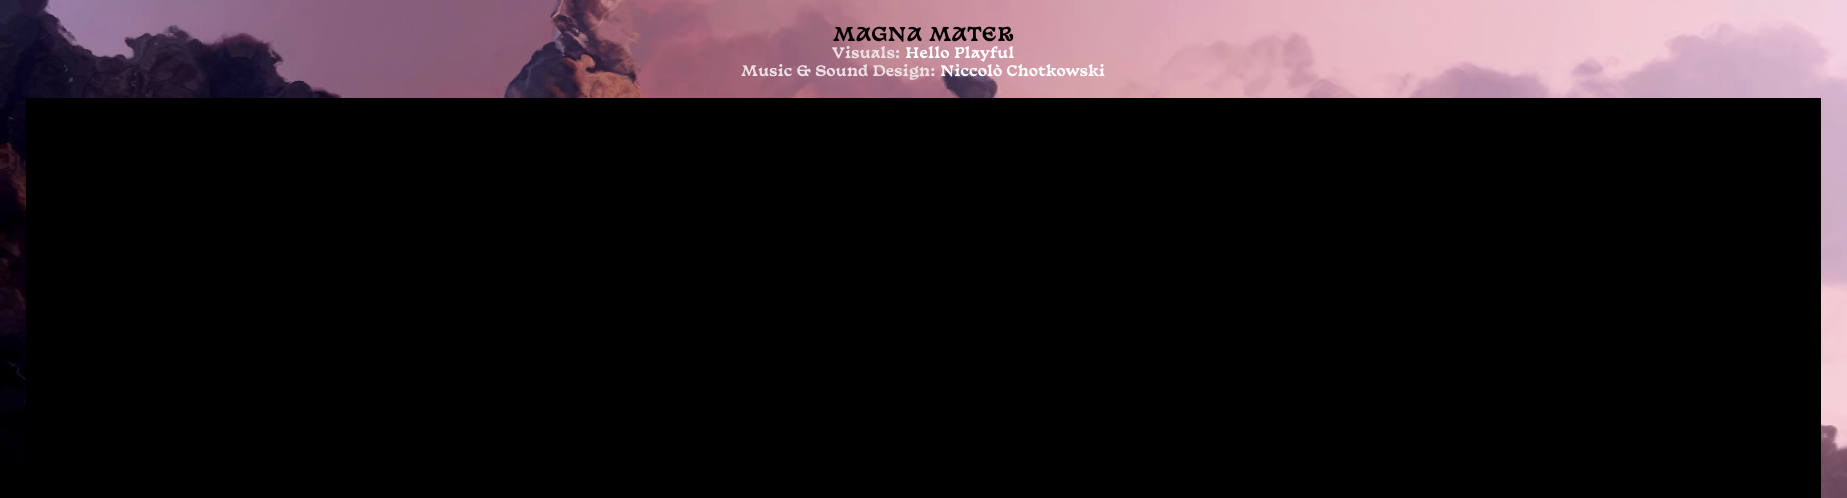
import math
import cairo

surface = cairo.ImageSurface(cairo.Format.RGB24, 1847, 498)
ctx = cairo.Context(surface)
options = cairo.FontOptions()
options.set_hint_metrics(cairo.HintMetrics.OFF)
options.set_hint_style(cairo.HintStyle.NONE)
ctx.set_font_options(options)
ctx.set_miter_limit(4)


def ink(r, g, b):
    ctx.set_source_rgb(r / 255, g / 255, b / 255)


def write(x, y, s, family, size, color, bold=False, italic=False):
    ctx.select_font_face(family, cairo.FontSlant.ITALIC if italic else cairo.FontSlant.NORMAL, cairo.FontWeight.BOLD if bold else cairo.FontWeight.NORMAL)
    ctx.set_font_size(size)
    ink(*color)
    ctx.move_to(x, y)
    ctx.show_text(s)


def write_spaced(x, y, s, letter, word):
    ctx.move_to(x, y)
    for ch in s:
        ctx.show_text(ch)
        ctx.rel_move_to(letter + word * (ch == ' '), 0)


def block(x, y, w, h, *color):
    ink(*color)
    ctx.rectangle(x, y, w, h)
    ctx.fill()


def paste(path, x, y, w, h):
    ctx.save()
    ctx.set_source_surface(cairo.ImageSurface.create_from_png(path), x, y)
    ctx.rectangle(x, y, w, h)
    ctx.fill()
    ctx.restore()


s1 = dict(family="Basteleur", size=14.3, color=(237, 223, 227), bold=True)
s2 = dict(family="Basteleur", size=14.3, color=(255, 255, 255), bold=True)

ink(255, 255, 255)
ctx.paint()
paste("pic1.png", 0, 0, 1847, 498)
ctx.select_font_face("Basteleur", cairo.FontSlant.NORMAL, cairo.FontWeight.BOLD)
ctx.set_font_size(18.75)
ink(0, 0, 0)
write_spaced(833, 41, "MAGNA MATER", 0.5, 0)
write(832, 58, "Visuals:", **s1)
write(905, 58, "Hello Playful", **s2)
write(741, 76, "Music & Sound Design:", **s1)
write(940, 76, "Niccolò Chotkowski", **s2)
block(26, 98, 1795, 400, 0, 0, 0)
surface.write_to_png("screenshot.png")
